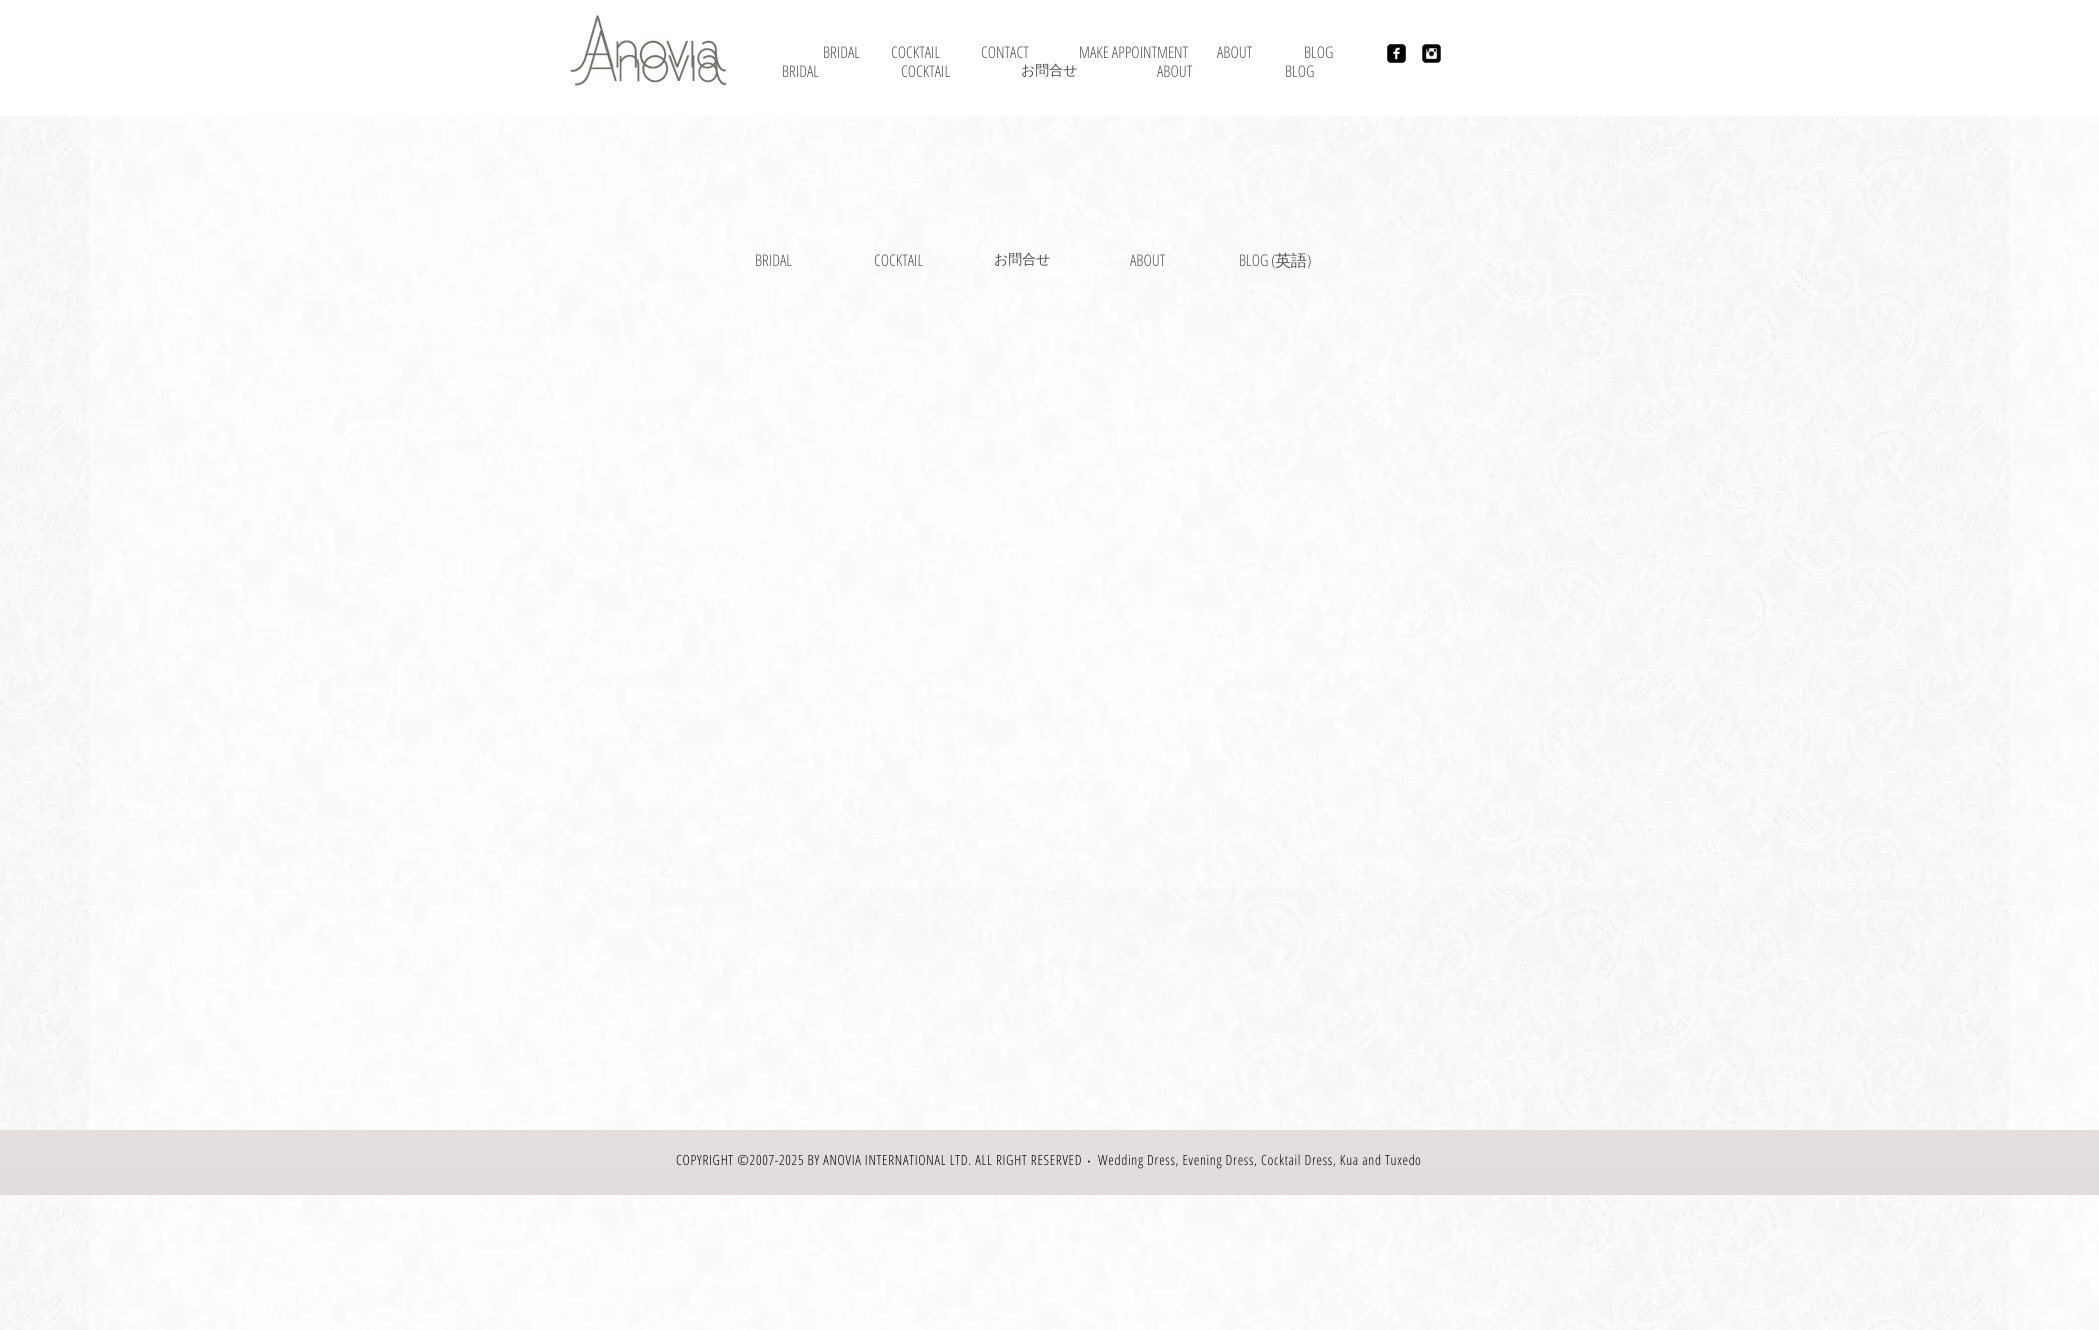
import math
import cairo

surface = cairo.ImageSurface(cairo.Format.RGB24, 2099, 1330)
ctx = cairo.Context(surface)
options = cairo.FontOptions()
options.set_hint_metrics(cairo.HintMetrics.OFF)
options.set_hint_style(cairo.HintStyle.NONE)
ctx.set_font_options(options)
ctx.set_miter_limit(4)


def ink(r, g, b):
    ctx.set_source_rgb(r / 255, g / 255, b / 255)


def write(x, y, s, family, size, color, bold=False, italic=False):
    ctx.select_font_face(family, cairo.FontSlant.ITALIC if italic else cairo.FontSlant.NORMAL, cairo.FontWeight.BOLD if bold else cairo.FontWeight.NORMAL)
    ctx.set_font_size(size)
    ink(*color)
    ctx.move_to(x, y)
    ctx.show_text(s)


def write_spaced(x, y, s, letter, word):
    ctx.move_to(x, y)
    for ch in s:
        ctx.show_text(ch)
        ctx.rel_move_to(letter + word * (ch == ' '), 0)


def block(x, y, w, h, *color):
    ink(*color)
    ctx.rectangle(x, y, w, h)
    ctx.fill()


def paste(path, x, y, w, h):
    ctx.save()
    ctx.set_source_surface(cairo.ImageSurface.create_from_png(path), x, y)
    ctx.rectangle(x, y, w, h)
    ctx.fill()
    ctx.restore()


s1 = dict(family="Open Sans Condensed Light", size=16, color=(77, 77, 77))
s2 = dict(family="WenQuanYi Zen Hei Medium", size=14, color=(77, 77, 77))
s3 = dict(family="WenQuanYi Zen Hei Medium", size=16, color=(77, 77, 77))
s4 = dict(family="Noto Sans", size=14, color=(0, 0, 0))

ink(255, 255, 255)
ctx.paint()
paste("pic1.png", 570, 15, 156, 57)
write(823, 58, "BRIDAL", **s1)
write(891, 58, "COCKTAIL", **s1)
write(981, 58, "CONTACT", **s1)
write(1079, 58, "MAKE APPOINTMENT", **s1)
write(1217, 58, "ABOUT", **s1)
write(1304, 58, "BLOG", **s1)
paste("pic2.png", 1387, 44, 19, 19)
paste("pic3.png", 1422, 44, 19, 19)
paste("pic4.png", 575, 30, 152, 56)
write(782, 77, "BRIDAL", **s1)
write(901, 77, "COCKTAIL", **s1)
write(1021, 75, "お問合せ", **s2)
write(1157, 77, "ABOUT", **s1)
write(1285, 77, "BLOG", **s1)
paste("pic6.png", 0, 116, 2099, 1214)
write(755, 266, "BRIDAL", **s1)
write(874, 266, "COCKTAIL", **s1)
write(994, 264, "お問合せ", **s2)
write(1130, 266, "ABOUT", **s1)
write(1239, 266, "BLOG (", **s1)
write(1275, 266, "英語", **s3)
write(1307, 266, ")", **s1)
block(0, 1130, 2099, 65, 219, 211, 211)
paste("pic5.png", 0, 1130, 2099, 65)
ctx.set_font_size(14)
ink(0, 0, 0)
write_spaced(676, 1165, "COPYRIGHT ©2007-2025 BY ANOVIA INTERNATIONAL LTD. ALL RIGHT RESERVED", 0.7, 0)
write(1087, 1165, "‧", **s4)
ctx.select_font_face("Open Sans Condensed Light")
write_spaced(1098, 1165, "Wedding Dress, Evening Dress, Cocktail Dress, Kua and Tuxed", 0.7, 0)
write_spaced(1415, 1165, "o", 1, 0)
surface.write_to_png("screenshot.png")
